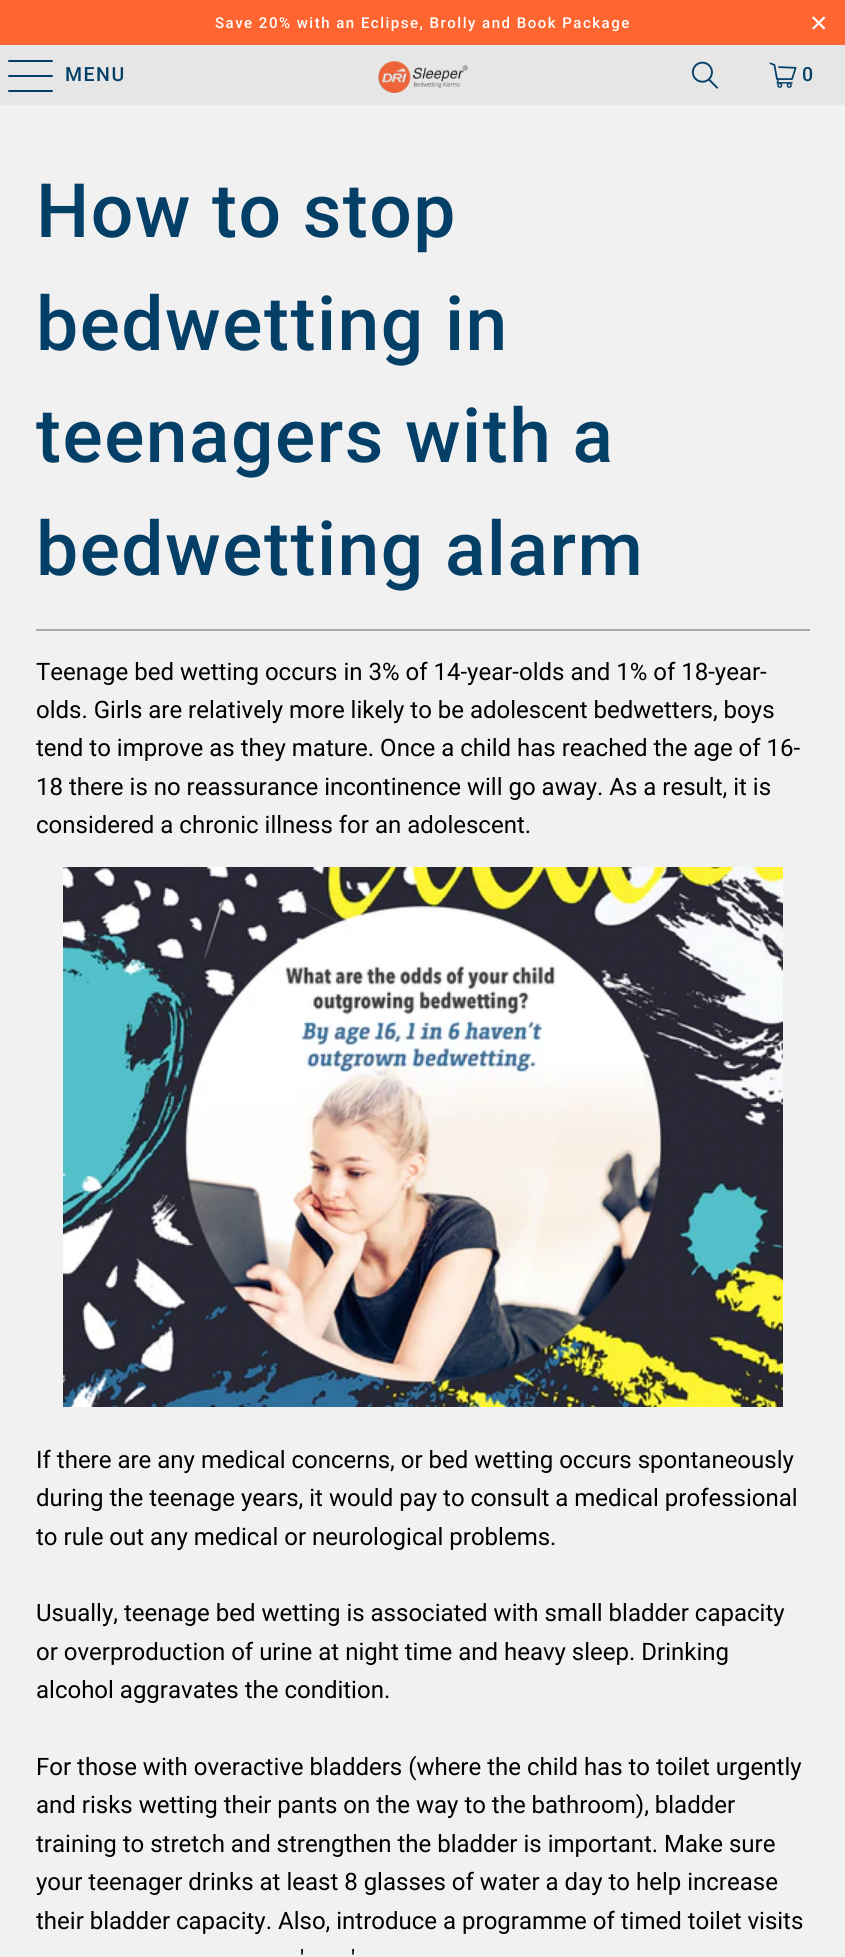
import math
import cairo

surface = cairo.ImageSurface(cairo.Format.RGB24, 845, 1957)
ctx = cairo.Context(surface)
options = cairo.FontOptions()
options.set_hint_metrics(cairo.HintMetrics.OFF)
options.set_hint_style(cairo.HintStyle.NONE)
ctx.set_font_options(options)
ctx.set_miter_limit(4)


def ink(r, g, b):
    ctx.set_source_rgb(r / 255, g / 255, b / 255)


def write(x, y, s, family, size, color, bold=False, italic=False):
    ctx.select_font_face(family, cairo.FontSlant.ITALIC if italic else cairo.FontSlant.NORMAL, cairo.FontWeight.BOLD if bold else cairo.FontWeight.NORMAL)
    ctx.set_font_size(size)
    ink(*color)
    ctx.move_to(x, y)
    ctx.show_text(s)


def write_spaced(x, y, s, letter, word):
    ctx.move_to(x, y)
    for ch in s:
        ctx.show_text(ch)
        ctx.rel_move_to(letter + word * (ch == ' '), 0)


def block(x, y, w, h, *color):
    ink(*color)
    ctx.rectangle(x, y, w, h)
    ctx.fill()


def round_path(x, y, w, h, r):
    ctx.new_sub_path()
    for i, (u, v) in enumerate([(x + w - r, y + h - r), (x + r, y + h - r), (x + r, y + r), (x + w - r, y + r)]):
        ctx.arc(u, v, r, i * math.pi / 2, (i + 1) * math.pi / 2)
    ctx.close_path()


def paste(path, x, y, w, h):
    ctx.save()
    ctx.set_source_surface(cairo.ImageSurface.create_from_png(path), x, y)
    ctx.rectangle(x, y, w, h)
    ctx.fill()
    ctx.restore()


s1 = dict(family="Roboto", size=24, color=(0, 0, 0))

ink(241, 241, 241)
ctx.paint()
block(0, 0, 845, 45, 255, 101, 48)
ctx.select_font_face("Roboto Medium")
ctx.set_font_size(15)
ink(255, 255, 255)
write_spaced(215, 28, "Save 20% with an Eclipse, Brolly and Book Package", 1.5, 0)
ctx.select_font_face("Liberation Sans")
ctx.set_font_size(30)
write_spaced(810, 33, "×", 1.5, 0)
block(0, 45, 845, 60, 230, 230, 230)
ink(4, 63, 104)
round_path(8, 60, 45, 2, 1)
ctx.fill()
round_path(8, 75, 45, 2, 1)
ctx.fill()
round_path(8, 90, 45, 2, 1)
ctx.fill()
ctx.select_font_face("Roboto Medium")
ctx.set_font_size(19.5)
write_spaced(65, 81, "MENU", 1.5, 0)
paste("pic1.png", 378, 60, 90, 33)
paste("pic2.png", 691, 61, 28, 28)
paste("pic3.png", 769, 62, 28, 26)
write_spaced(802, 81, "0", 1.5, 0)
ctx.set_font_size(75)
write_spaced(36, 237, "How to stop", 1.5, 0)
write_spaced(36, 350, "bedwetting in", 1.5, 0)
write_spaced(36, 462, "teenagers with a", 1.5, 0)
write_spaced(36, 575, "bedwetting alarm", 1.5, 0)
block(36, 629, 774, 2, 170, 170, 170)
write(36, 680, "Teenage bed wetting occurs in 3% of 14-year-olds and 1% of 18-year-", **s1)
write(36, 718, "olds. Girls are relatively more likely to be adolescent bedwetters, boys", **s1)
write(36, 756, "tend to improve as they mature. Once a child has reached the age of 16-", **s1)
write(36, 795, "18 there is no reassurance incontinence will go away. As a result, it is", **s1)
write(36, 833, "considered a chronic illness for an adolescent.", **s1)
paste("pic4.png", 63, 867, 720, 540)
write(36, 1468, "If there are any medical concerns, or bed wetting occurs spontaneously", **s1)
write(36, 1506, "during the teenage years, it would pay to consult a medical professional", **s1)
write(36, 1545, "to rule out any medical or neurological problems.", **s1)
write(36, 1621, "Usually, teenage bed wetting is associated with small bladder capacity", **s1)
write(36, 1660, "or overproduction of urine at night time and heavy sleep. Drinking", **s1)
write(36, 1698, "alcohol aggravates the condition.", **s1)
write(36, 1775, "For those with overactive bladders (where the child has to toilet urgently", **s1)
write(36, 1813, "and risks wetting their pants on the way to the bathroom), bladder", **s1)
write(36, 1852, "training to stretch and strengthen the bladder is important. Make sure", **s1)
write(36, 1890, "your teenager drinks at least 8 glasses of water a day to help increase", **s1)
write(36, 1929, "their bladder capacity. Also, introduce a programme of timed toilet visits", **s1)
write(300, 1967, "'", **s1)
write(351, 1967, "'", **s1)
surface.write_to_png("screenshot.png")
